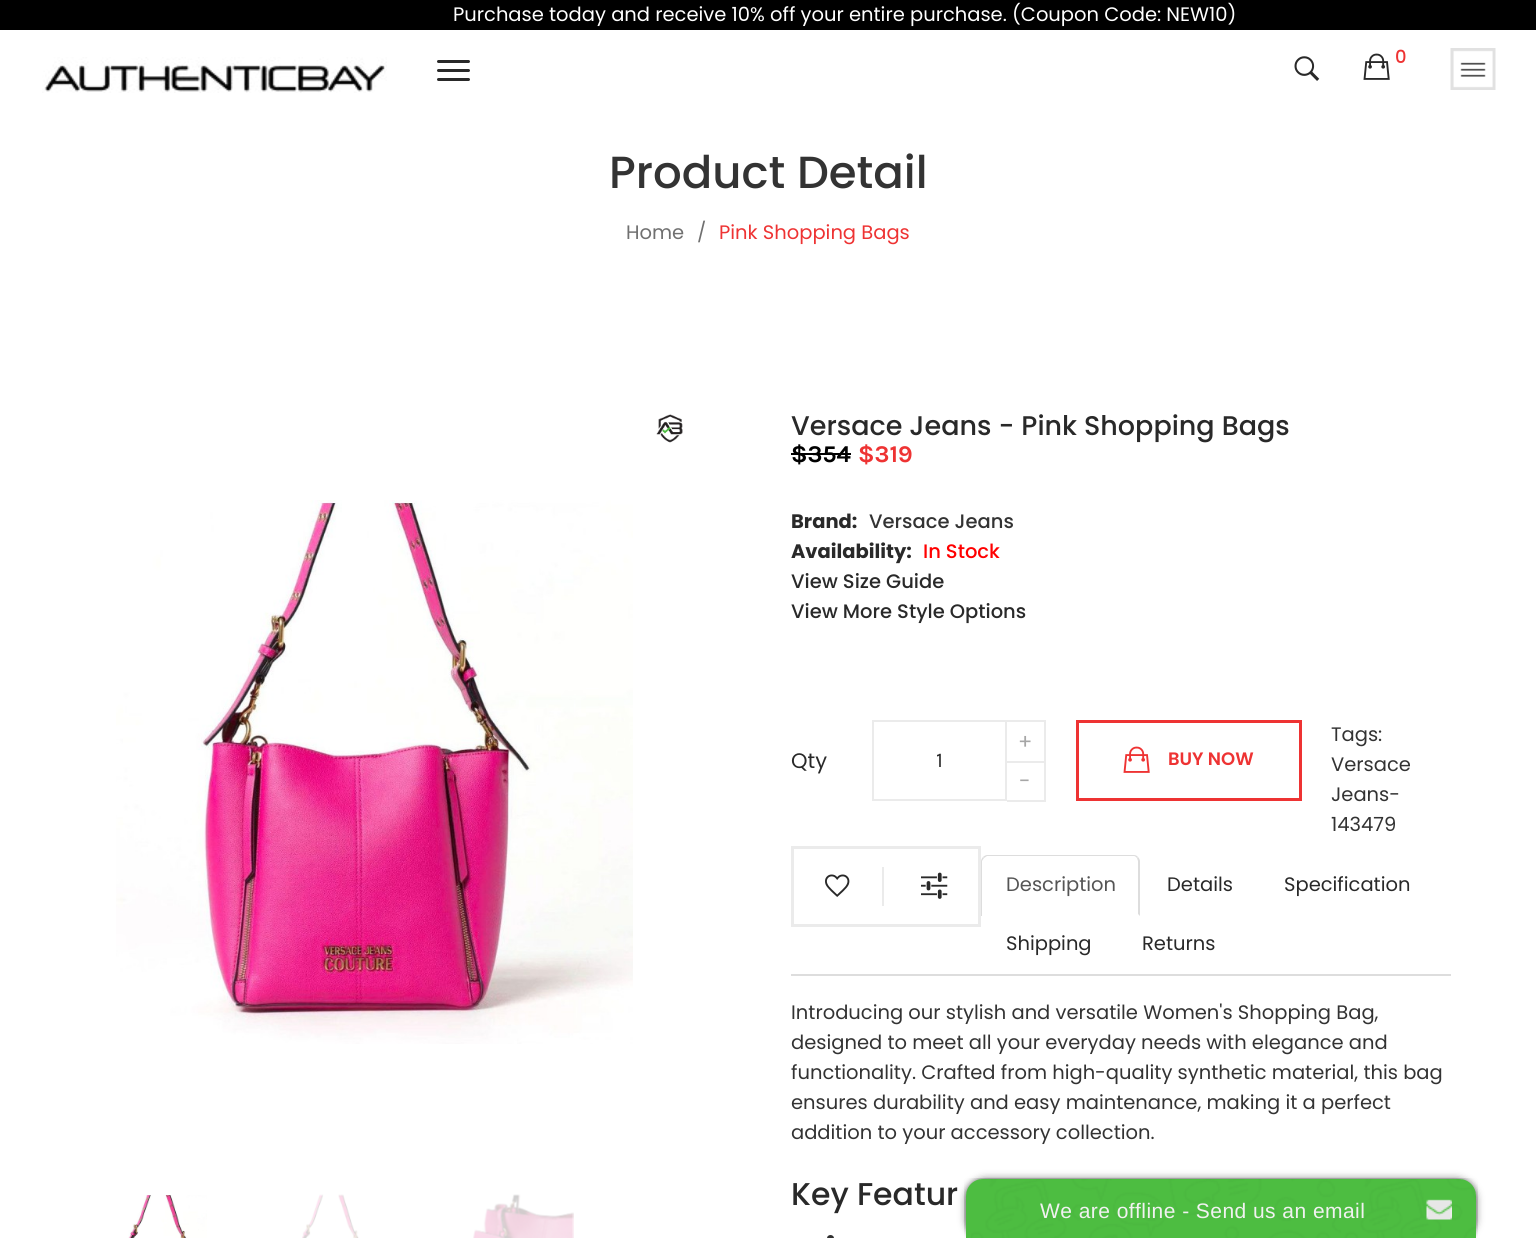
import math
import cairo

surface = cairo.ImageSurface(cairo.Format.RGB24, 1536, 1238)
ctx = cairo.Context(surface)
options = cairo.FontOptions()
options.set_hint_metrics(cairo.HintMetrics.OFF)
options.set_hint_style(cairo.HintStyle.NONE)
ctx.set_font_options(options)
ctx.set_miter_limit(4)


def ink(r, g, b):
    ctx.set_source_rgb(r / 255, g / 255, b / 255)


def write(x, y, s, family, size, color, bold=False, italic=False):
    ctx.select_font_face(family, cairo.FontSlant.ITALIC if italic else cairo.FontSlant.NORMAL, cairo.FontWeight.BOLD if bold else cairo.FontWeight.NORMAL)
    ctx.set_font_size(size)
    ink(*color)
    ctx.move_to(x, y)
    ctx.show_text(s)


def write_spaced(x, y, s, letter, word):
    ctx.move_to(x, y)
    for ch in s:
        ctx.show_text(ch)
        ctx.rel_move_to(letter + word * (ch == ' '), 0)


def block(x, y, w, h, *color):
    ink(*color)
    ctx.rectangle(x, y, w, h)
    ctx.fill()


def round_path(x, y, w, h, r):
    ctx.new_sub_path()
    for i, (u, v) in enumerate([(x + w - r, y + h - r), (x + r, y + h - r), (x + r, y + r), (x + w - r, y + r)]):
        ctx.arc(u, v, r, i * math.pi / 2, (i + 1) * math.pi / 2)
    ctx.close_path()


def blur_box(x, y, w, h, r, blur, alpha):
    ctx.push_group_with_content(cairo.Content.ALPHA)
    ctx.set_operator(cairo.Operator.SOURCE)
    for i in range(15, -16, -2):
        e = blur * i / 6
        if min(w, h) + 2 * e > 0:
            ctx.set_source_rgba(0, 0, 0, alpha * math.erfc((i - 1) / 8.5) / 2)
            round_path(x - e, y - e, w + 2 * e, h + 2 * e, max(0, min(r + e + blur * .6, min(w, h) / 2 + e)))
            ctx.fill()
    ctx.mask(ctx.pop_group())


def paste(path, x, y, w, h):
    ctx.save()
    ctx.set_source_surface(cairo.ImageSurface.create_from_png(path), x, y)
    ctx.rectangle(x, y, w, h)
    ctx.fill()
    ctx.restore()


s1 = dict(family="Poppins", size=19.5, color=(255, 255, 255))
s2 = dict(family="Poppins Medium", size=18, color=(238, 51, 51))
s3 = dict(family="Poppins Medium", size=45, color=(51, 51, 51))
s4 = dict(family="Poppins", size=19.5, color=(112, 112, 112))
s5 = dict(family="Poppins", size=19.5, color=(238, 51, 51))
s6 = dict(family="Poppins Medium", size=27, color=(41, 41, 41))
s7 = dict(family="Karla", size=24, color=(0, 0, 0), bold=True)
s8 = dict(family="Karla", size=24, color=(238, 51, 51), bold=True)
s9 = dict(family="Poppins", size=19.5, color=(41, 41, 41), bold=True)
s10 = dict(family="Poppins Medium", size=19.5, color=(51, 51, 51))
s11 = dict(family="Poppins Medium", size=19.5, color=(255, 0, 0))
s12 = dict(family="Poppins Medium", size=19.5, color=(41, 41, 41))
s13 = dict(family="Poppins", size=21, color=(41, 41, 41))
s14 = dict(family="Poppins", size=21, color=(166, 166, 166))
s15 = dict(family="Karla", size=21, color=(41, 41, 41))
s16 = dict(family="Poppins SemiBold", size=18, color=(238, 51, 51))
s17 = dict(family="Poppins", size=19.5, color=(51, 51, 51))
s18 = dict(family="Poppins", size=19.5, color=(85, 85, 85))
s19 = dict(family="Poppins", size=19.5, color=(41, 41, 41))
s20 = dict(family="Poppins Medium", size=31.5, color=(41, 41, 41))

ink(255, 255, 255)
ctx.paint()
block(0, 0, 1536, 30, 0, 0, 0)
write(453, 21, "Purchase today and receive 10% off your entire purchase. (Coupon Code: NEW10)", **s1)
paste("pic1.png", 42, 57, 345, 36)
ink(41, 41, 41)
round_path(437, 60, 33, 3, 1.5)
ctx.fill()
round_path(437, 69, 33, 3, 1.5)
ctx.fill()
round_path(437, 78, 33, 3, 1.5)
ctx.fill()
paste("pic2.png", 1294, 56, 26, 25)
paste("pic3.png", 1363, 53, 27, 27)
write(1395, 63, "0", **s2)
paste("pic4.png", 1450, 48, 46, 42)
write(609, 188, "Product Detail", **s3)
write(626, 239, "Home", **s4)
write(697, 239, "/", **s4)
write(719, 239, "Pink Shopping Bags", **s5)
paste("pic5.png", 656, 414, 27, 29)
paste("pic6.png", 116, 500, 517, 544)
paste("pic7.png", 128, 1195, 79, 43)
paste("pic8.png", 302, 1194, 57, 44)
paste("pic9.png", 473, 1194, 101, 44)
write(791, 435, "Versace Jeans - Pink Shopping Bags", **s6)
write(791, 462, "$354", **s7)
block(791, 453, 60, 2, 0, 0, 0)
write(858, 462, "$319", **s8)
write(791, 528, "Brand:", **s9)
write(869, 528, "Versace Jeans", **s10)
write(791, 558, "Availability:", **s9)
write(923, 558, "In Stock", **s11)
write(791, 588, "View Size Guide", **s12)
write(791, 618, "View More Style Options", **s12)
write(791, 768, "Qty", **s13)
block(1007, 720, 39, 2, 235, 235, 235)
block(1044, 720, 2, 41, 235, 235, 235)
write(1018, 749, "+", **s14)
ctx.rectangle(873, 721, 133, 79)
ink(235, 235, 235)
ctx.stroke()
write(936, 767, "1", **s15)
block(1007, 761, 39, 2, 235, 235, 235)
block(1044, 761, 2, 40, 235, 235, 235)
block(1007, 800, 39, 2, 235, 235, 235)
write(1019, 788, "-", **s14)
ctx.rectangle(1077.5, 721.5, 223, 78)
ink(238, 51, 51)
ctx.set_line_width(3)
ctx.stroke()
paste("pic10.png", 1123, 746, 27, 27)
write(1168, 765, "BUY NOW", **s16)
ctx.rectangle(792.5, 847.5, 187, 78)
ink(235, 235, 235)
ctx.stroke()
block(882, 867, 2, 39, 235, 235, 235)
paste("pic11.png", 825, 874, 25, 23)
paste("pic12.png", 921, 872, 27, 27)
write(1331, 741, "Tags:", **s17)
write(1331, 771, "Versace", **s17)
write(1331, 801, "Jeans-", **s17)
write(1331, 831, "143479", **s17)
block(791, 974, 660, 2, 221, 221, 221)
ctx.new_path()
ctx.move_to(987, 855)
ctx.curve_to(986, 855, 984, 856, 983, 857)
ctx.line_to(984, 858)
ctx.line_to(987, 856)
ctx.line_to(1134, 856)
ctx.curve_to(1135, 856, 1136, 857, 1137, 858)
ctx.line_to(1138, 857)
ctx.curve_to(1137, 856, 1136, 855, 1134, 855)
ctx.close_path()
ctx.fill()
ctx.new_path()
ctx.move_to(1140, 916)
ctx.line_to(1140, 861)
ctx.curve_to(1140, 860, 1139, 858, 1138, 857)
ctx.line_to(1137, 858)
ctx.line_to(1138, 861)
ctx.line_to(1138, 914)
ctx.close_path()
ctx.fill()
ctx.new_path()
ctx.move_to(981, 861)
ctx.line_to(981, 916)
ctx.line_to(982, 916)
ctx.line_to(982, 915)
ctx.line_to(982, 861)
ctx.line_to(984, 858)
ctx.line_to(983, 857)
ctx.curve_to(982, 858, 981, 860, 981, 861)
ctx.close_path()
ctx.fill()
write(1006, 891, "Description", **s18)
write(1167, 891, "Details", **s19)
write(1284, 891, "Specification", **s19)
write(1006, 950, "Shipping", **s19)
write(1142, 950, "Returns", **s19)
write(791, 1019, "Introducing our stylish and versatile Women's Shopping Bag,", **s17)
write(791, 1049, "designed to meet all your everyday needs with elegance and", **s17)
write(791, 1079, "functionality. Crafted from high-quality synthetic material, this bag", **s17)
write(791, 1109, "ensures durability and easy maintenance, making it a perfect", **s17)
write(791, 1139, "addition to your accessory collection.", **s17)
write(791, 1205, "Key Featur", **s20)
ink(48, 48, 48)
ctx.new_path()
ctx.arc(830.5, 1238.5, 3.5, 0, 2 * math.pi)
ctx.fill()
ink(119, 119, 119)
blur_box(966, 1179, 510, 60, 20, 4, 1)
paste("pic13.png", 964, 1178, 514, 60)
ink(77, 189, 65)
ctx.new_path()
ctx.move_to(983, 1179)
ctx.line_to(1459, 1179)
ctx.curve_to(1468.5, 1179, 1476, 1186.5, 1476, 1196)
ctx.line_to(1476, 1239)
ctx.line_to(966, 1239)
ctx.line_to(966, 1196)
ctx.curve_to(966, 1186.5, 973.5, 1179, 983, 1179)
ctx.close_path()
ctx.fill()
paste("pic14.png", 971, 1179, 505, 59)
ctx.select_font_face("Liberation Sans")
ctx.set_font_size(21)
ink(241, 241, 241)
write_spaced(1040, 1218, "We are offline - Send us an email", 0.45, 0)
paste("pic15.png", 1426, 1199, 26, 21)
surface.write_to_png("screenshot.png")
